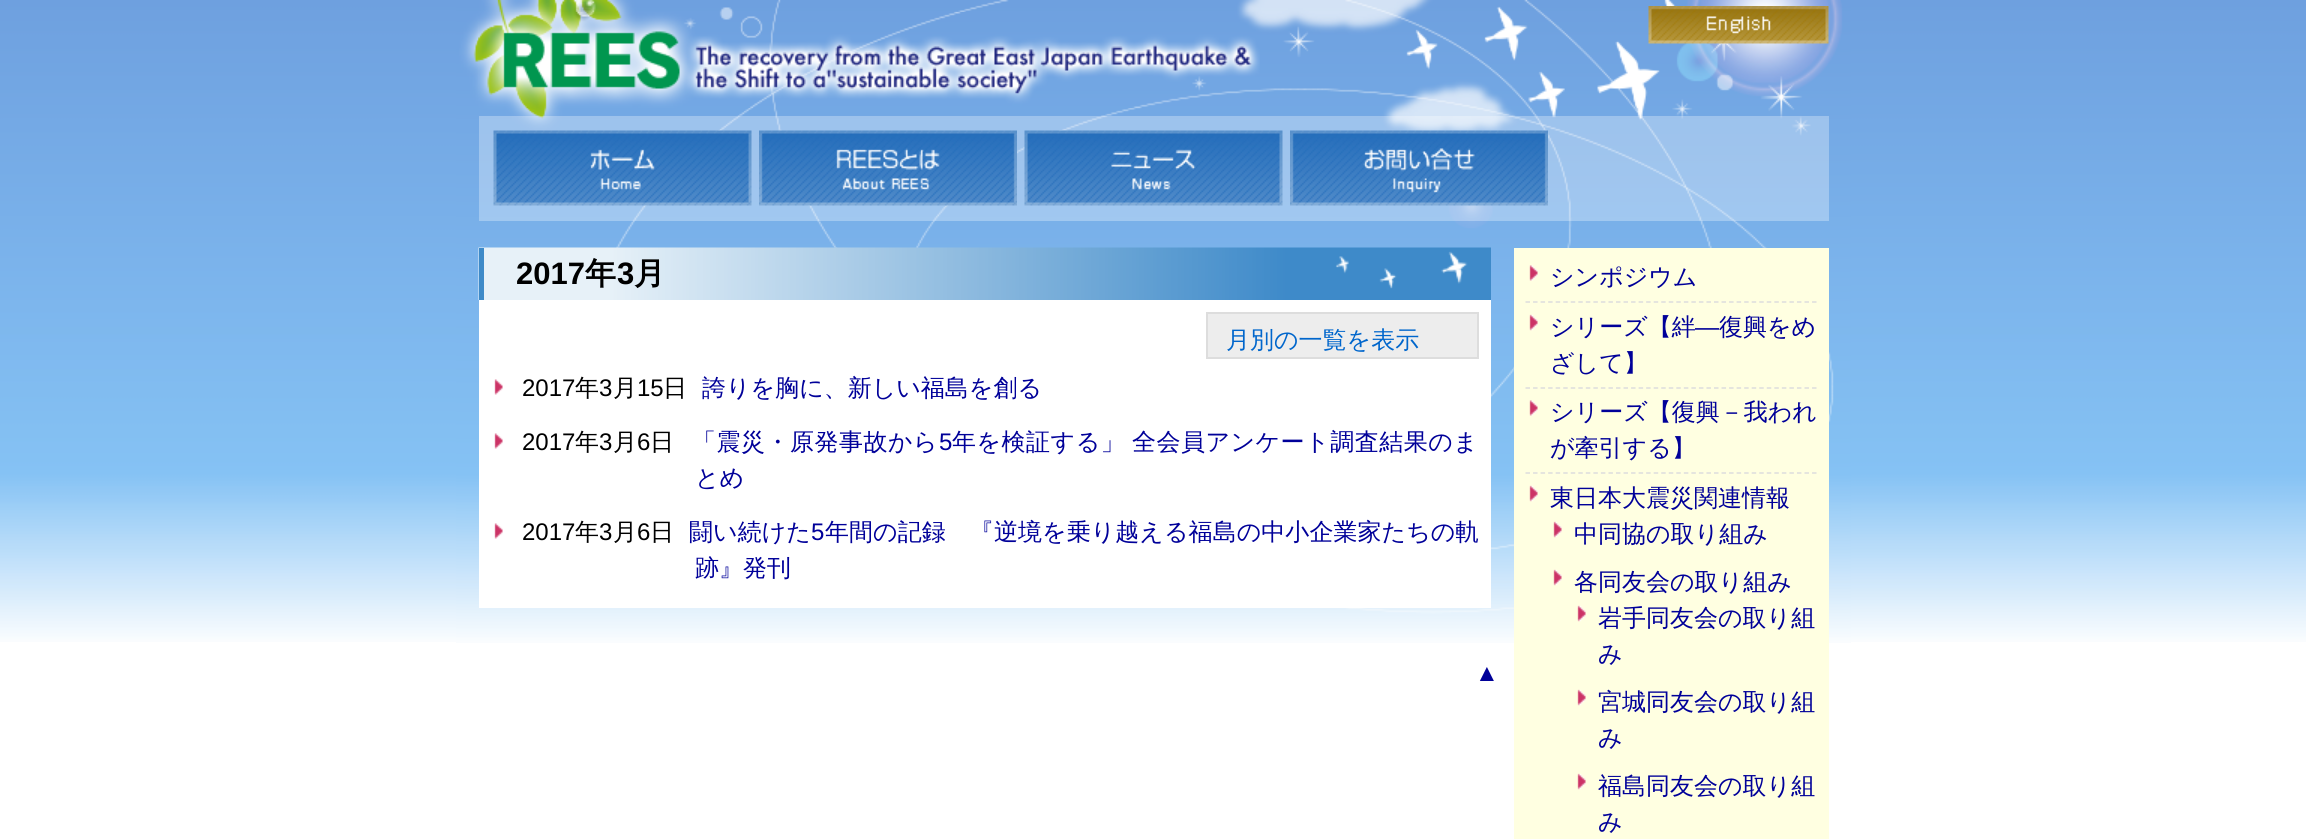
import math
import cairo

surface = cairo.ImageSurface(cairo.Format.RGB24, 2306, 839)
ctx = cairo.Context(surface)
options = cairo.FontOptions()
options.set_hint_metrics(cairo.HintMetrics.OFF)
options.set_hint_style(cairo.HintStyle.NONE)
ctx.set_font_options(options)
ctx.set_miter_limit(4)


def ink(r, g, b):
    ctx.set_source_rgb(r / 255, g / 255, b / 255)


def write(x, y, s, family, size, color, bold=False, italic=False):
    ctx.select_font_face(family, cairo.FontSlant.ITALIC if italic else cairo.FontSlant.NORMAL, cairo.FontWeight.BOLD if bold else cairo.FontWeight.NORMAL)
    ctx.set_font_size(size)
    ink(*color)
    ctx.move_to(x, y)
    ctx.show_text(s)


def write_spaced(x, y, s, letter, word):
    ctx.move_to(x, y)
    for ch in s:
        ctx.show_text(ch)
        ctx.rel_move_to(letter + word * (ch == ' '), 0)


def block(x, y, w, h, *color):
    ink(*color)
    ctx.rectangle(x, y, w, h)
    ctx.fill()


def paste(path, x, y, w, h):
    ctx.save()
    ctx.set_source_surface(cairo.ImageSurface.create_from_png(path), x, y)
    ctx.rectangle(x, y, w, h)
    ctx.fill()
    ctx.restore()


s1 = dict(family="Liberation Sans", size=31, color=(0, 0, 0), bold=True)
s2 = dict(family="WenQuanYi Zen Hei", size=31, color=(0, 0, 0), bold=True)
s3 = dict(family="WenQuanYi Zen Hei Medium", size=24, color=(0, 102, 204))
s4 = dict(family="Liberation Sans", size=24, color=(0, 0, 0))
s5 = dict(family="WenQuanYi Zen Hei Medium", size=24, color=(0, 0, 0))
s6 = dict(family="WenQuanYi Zen Hei Medium", size=24, color=(0, 0, 153))
s7 = dict(family="Liberation Sans", size=24, color=(0, 0, 153))

ink(255, 255, 255)
ctx.paint()
paste("pic1.png", 0, 0, 2306, 642)
paste("pic2.png", 456, 0, 1395, 643)
paste("pic3.png", 478, 12, 782, 96)
paste("pic4.png", 1648, 6, 181, 38)
ctx.set_source_rgba(1, 1, 1, 0.3)
ctx.rectangle(479, 116, 1350, 105)
ctx.fill()
paste("pic5.png", 493, 130, 259, 76)
paste("pic6.png", 759, 130, 258, 76)
paste("pic7.png", 1024, 130, 259, 76)
paste("pic8.png", 1290, 130, 258, 76)
block(479, 300, 1012, 308, 255, 255, 255)
paste("pic9.png", 478, 247, 1013, 53)
block(479, 248, 5, 52, 62, 138, 200)
write(516, 284, "2017", **s1)
write(585, 284, "年", **s2)
write(617, 284, "3", **s1)
write(634, 284, "月", **s2)
ink(237, 237, 237)
ctx.rectangle(1207, 313, 271, 45)
ctx.fill_preserve()
ink(221, 221, 221)
ctx.stroke()
write(1226, 348, "月別の一覧を表示", **s3)
paste("pic10.png", 494, 379, 9, 16)
write(522, 396, "2017", **s4)
write(575, 396, "年", **s5)
write(599, 396, "3", **s4)
write(613, 396, "月", **s5)
write(637, 396, "15", **s4)
write(663, 396, "日", **s5)
write(702, 396, "誇りを胸に、新しい福島を創る", **s6)
paste("pic10.png", 494, 433, 9, 16)
write(522, 450, "2017", **s4)
write(575, 450, "年", **s5)
write(599, 450, "3", **s4)
write(613, 450, "月", **s5)
write(637, 450, "6", **s4)
write(650, 450, "日", **s5)
ink(0, 0, 153)
write_spaced(692, 450, "「震災・原発事故から", 0.5, 0)
ctx.select_font_face("Liberation Sans")
write_spaced(939, 450, "5", 0.5, 0)
ctx.select_font_face("WenQuanYi Zen Hei Medium")
write_spaced(952, 450, "年を検証する」 全会員アンケート調査結果のま", 0.5, -1)
write(695, 486, "とめ", **s6)
paste("pic10.png", 494, 523, 9, 16)
write(522, 540, "2017", **s4)
write(575, 540, "年", **s5)
write(599, 540, "3", **s4)
write(613, 540, "月", **s5)
write(637, 540, "6", **s4)
write(650, 540, "日", **s5)
ink(0, 0, 153)
write_spaced(689, 540, "闘い続けた", 0.05, 0)
ctx.select_font_face("Liberation Sans")
write_spaced(811, 540, "5", 0.05, 0)
ctx.select_font_face("WenQuanYi Zen Hei Medium")
write_spaced(825, 540, "年間の記録　『逆境を乗り越える福島の中小企業家たちの軌", 0.05, 0)
write(695, 576, "跡』発刊", **s6)
write(1475, 681, "▲", **s7)
block(1514, 248, 315, 591, 255, 255, 225)
paste("pic11.png", 1529, 265, 9, 16)
ctx.new_path()
ctx.move_to(1525.5, 302)
ctx.line_to(1816.5, 302)
ink(221, 221, 221)
ctx.set_line_width(1.5)
ctx.set_dash([4.5, 3.04])
ctx.stroke()
write(1550, 285, "シンポジウム", **s6)
paste("pic12.png", 1529, 314, 9, 17)
ctx.new_path()
ctx.move_to(1525.5, 388)
ctx.line_to(1816.5, 388)
ink(221, 221, 221)
ctx.stroke()
write(1550, 335, "シリーズ【絆", **s6)
write(1695, 335, "―", **s7)
write(1719, 335, "復興をめ", **s6)
write(1550, 371, "ざして】", **s6)
paste("pic11.png", 1529, 400, 9, 16)
ctx.new_path()
ctx.move_to(1525.5, 473)
ctx.line_to(1816.5, 473)
ink(221, 221, 221)
ctx.stroke()
write(1550, 420, "シリーズ【復興－我われ", **s6)
write(1550, 456, "が牽引する】", **s6)
paste("pic12.png", 1529, 485, 9, 17)
write(1550, 506, "東日本大震災関連情報", **s6)
paste("pic12.png", 1553, 521, 9, 17)
write(1574, 542, "中同協の取り組み", **s6)
paste("pic12.png", 1553, 569, 9, 17)
write(1574, 590, "各同友会の取り組み", **s6)
paste("pic12.png", 1577, 605, 9, 17)
write(1598, 626, "岩手同友会の取り組", **s6)
write(1598, 662, "み", **s6)
paste("pic12.png", 1577, 689, 9, 17)
write(1598, 710, "宮城同友会の取り組", **s6)
write(1598, 746, "み", **s6)
paste("pic12.png", 1577, 773, 9, 17)
write(1598, 794, "福島同友会の取り組", **s6)
write(1598, 830, "み", **s6)
surface.write_to_png("screenshot.png")
